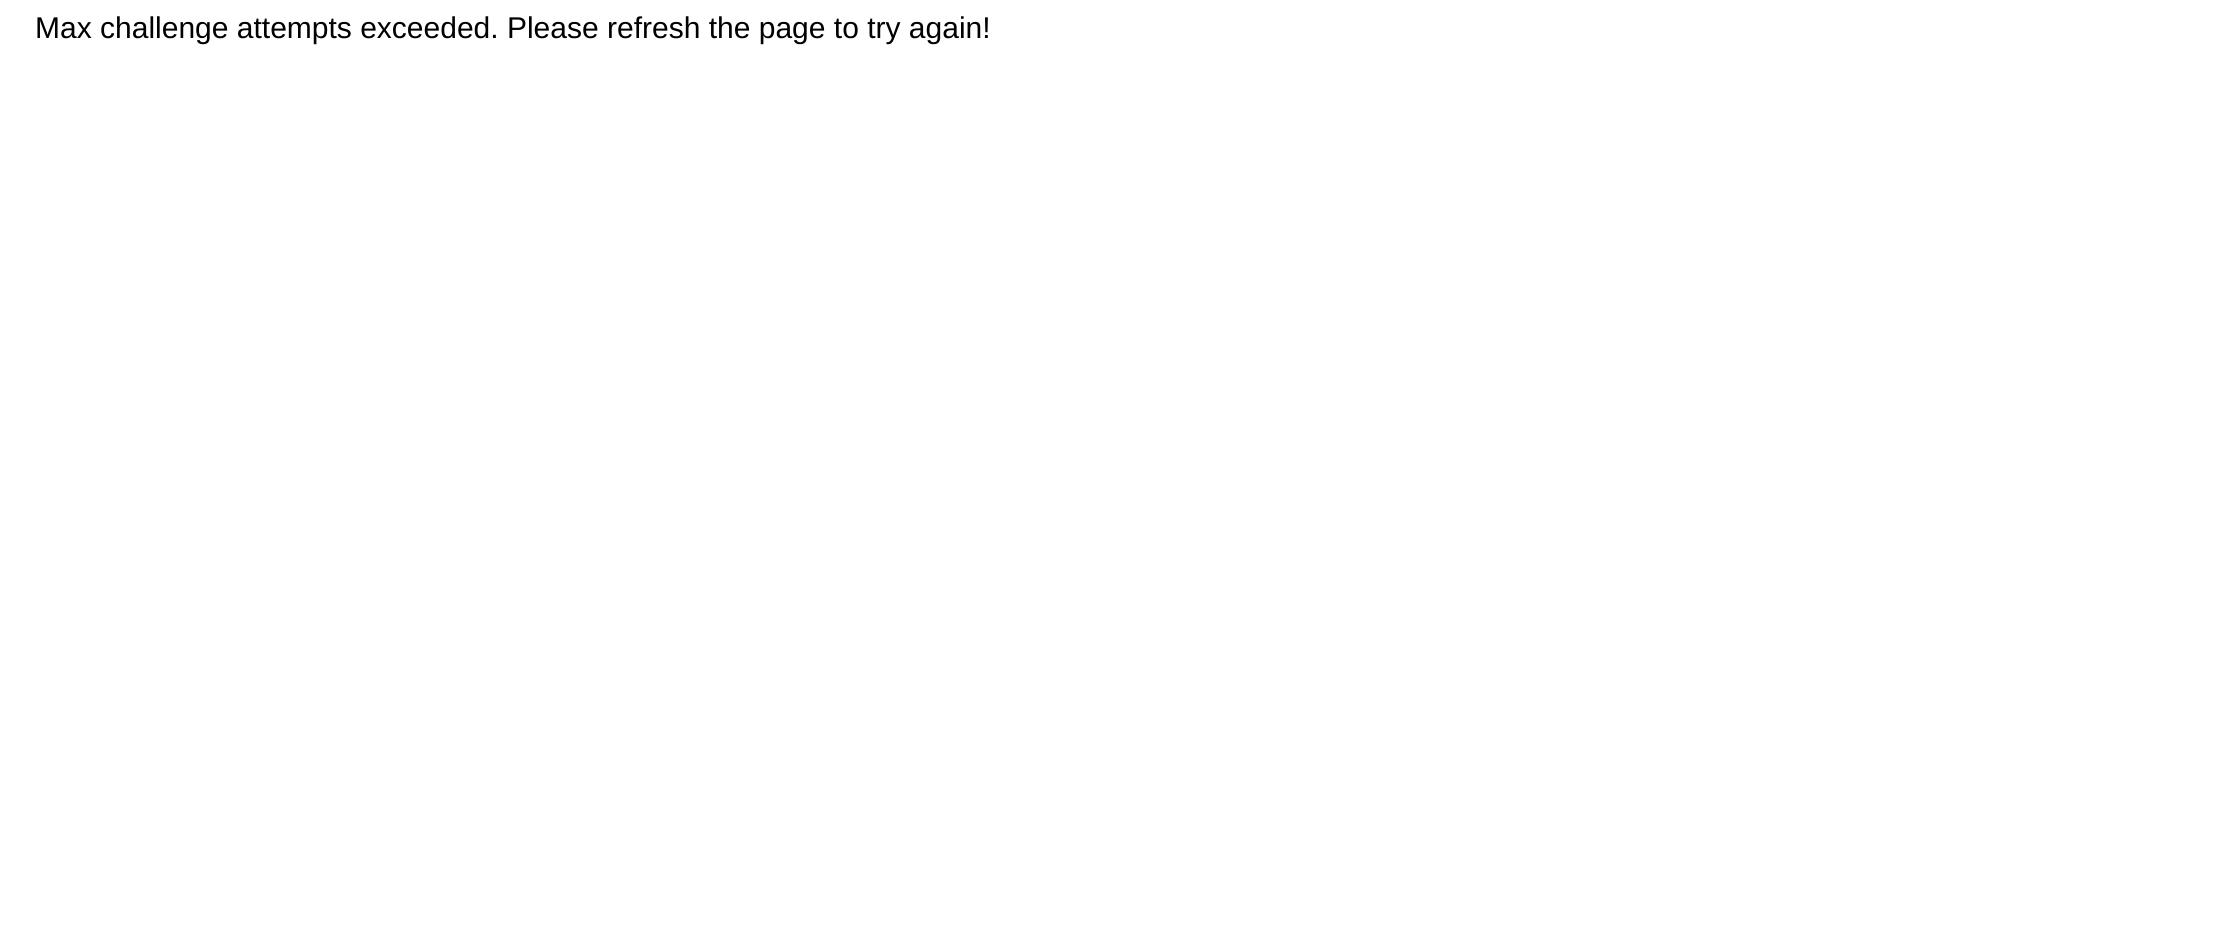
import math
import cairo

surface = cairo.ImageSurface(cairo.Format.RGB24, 2221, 937)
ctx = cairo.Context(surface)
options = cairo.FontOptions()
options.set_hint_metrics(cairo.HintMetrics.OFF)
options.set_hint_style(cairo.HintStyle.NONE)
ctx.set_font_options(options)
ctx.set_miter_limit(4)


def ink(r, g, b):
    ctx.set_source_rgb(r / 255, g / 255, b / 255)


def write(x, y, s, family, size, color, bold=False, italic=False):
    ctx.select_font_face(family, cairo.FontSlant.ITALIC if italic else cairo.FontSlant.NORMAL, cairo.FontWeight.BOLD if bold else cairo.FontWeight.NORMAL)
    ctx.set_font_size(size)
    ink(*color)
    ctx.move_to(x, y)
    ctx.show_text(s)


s1 = dict(family="Liberation Sans", size=30, color=(0, 0, 0))

ink(255, 255, 255)
ctx.paint()
write(35, 38, "Max challenge attempts exceeded. Please refresh the page to try again!", **s1)
surface.write_to_png("screenshot.png")
